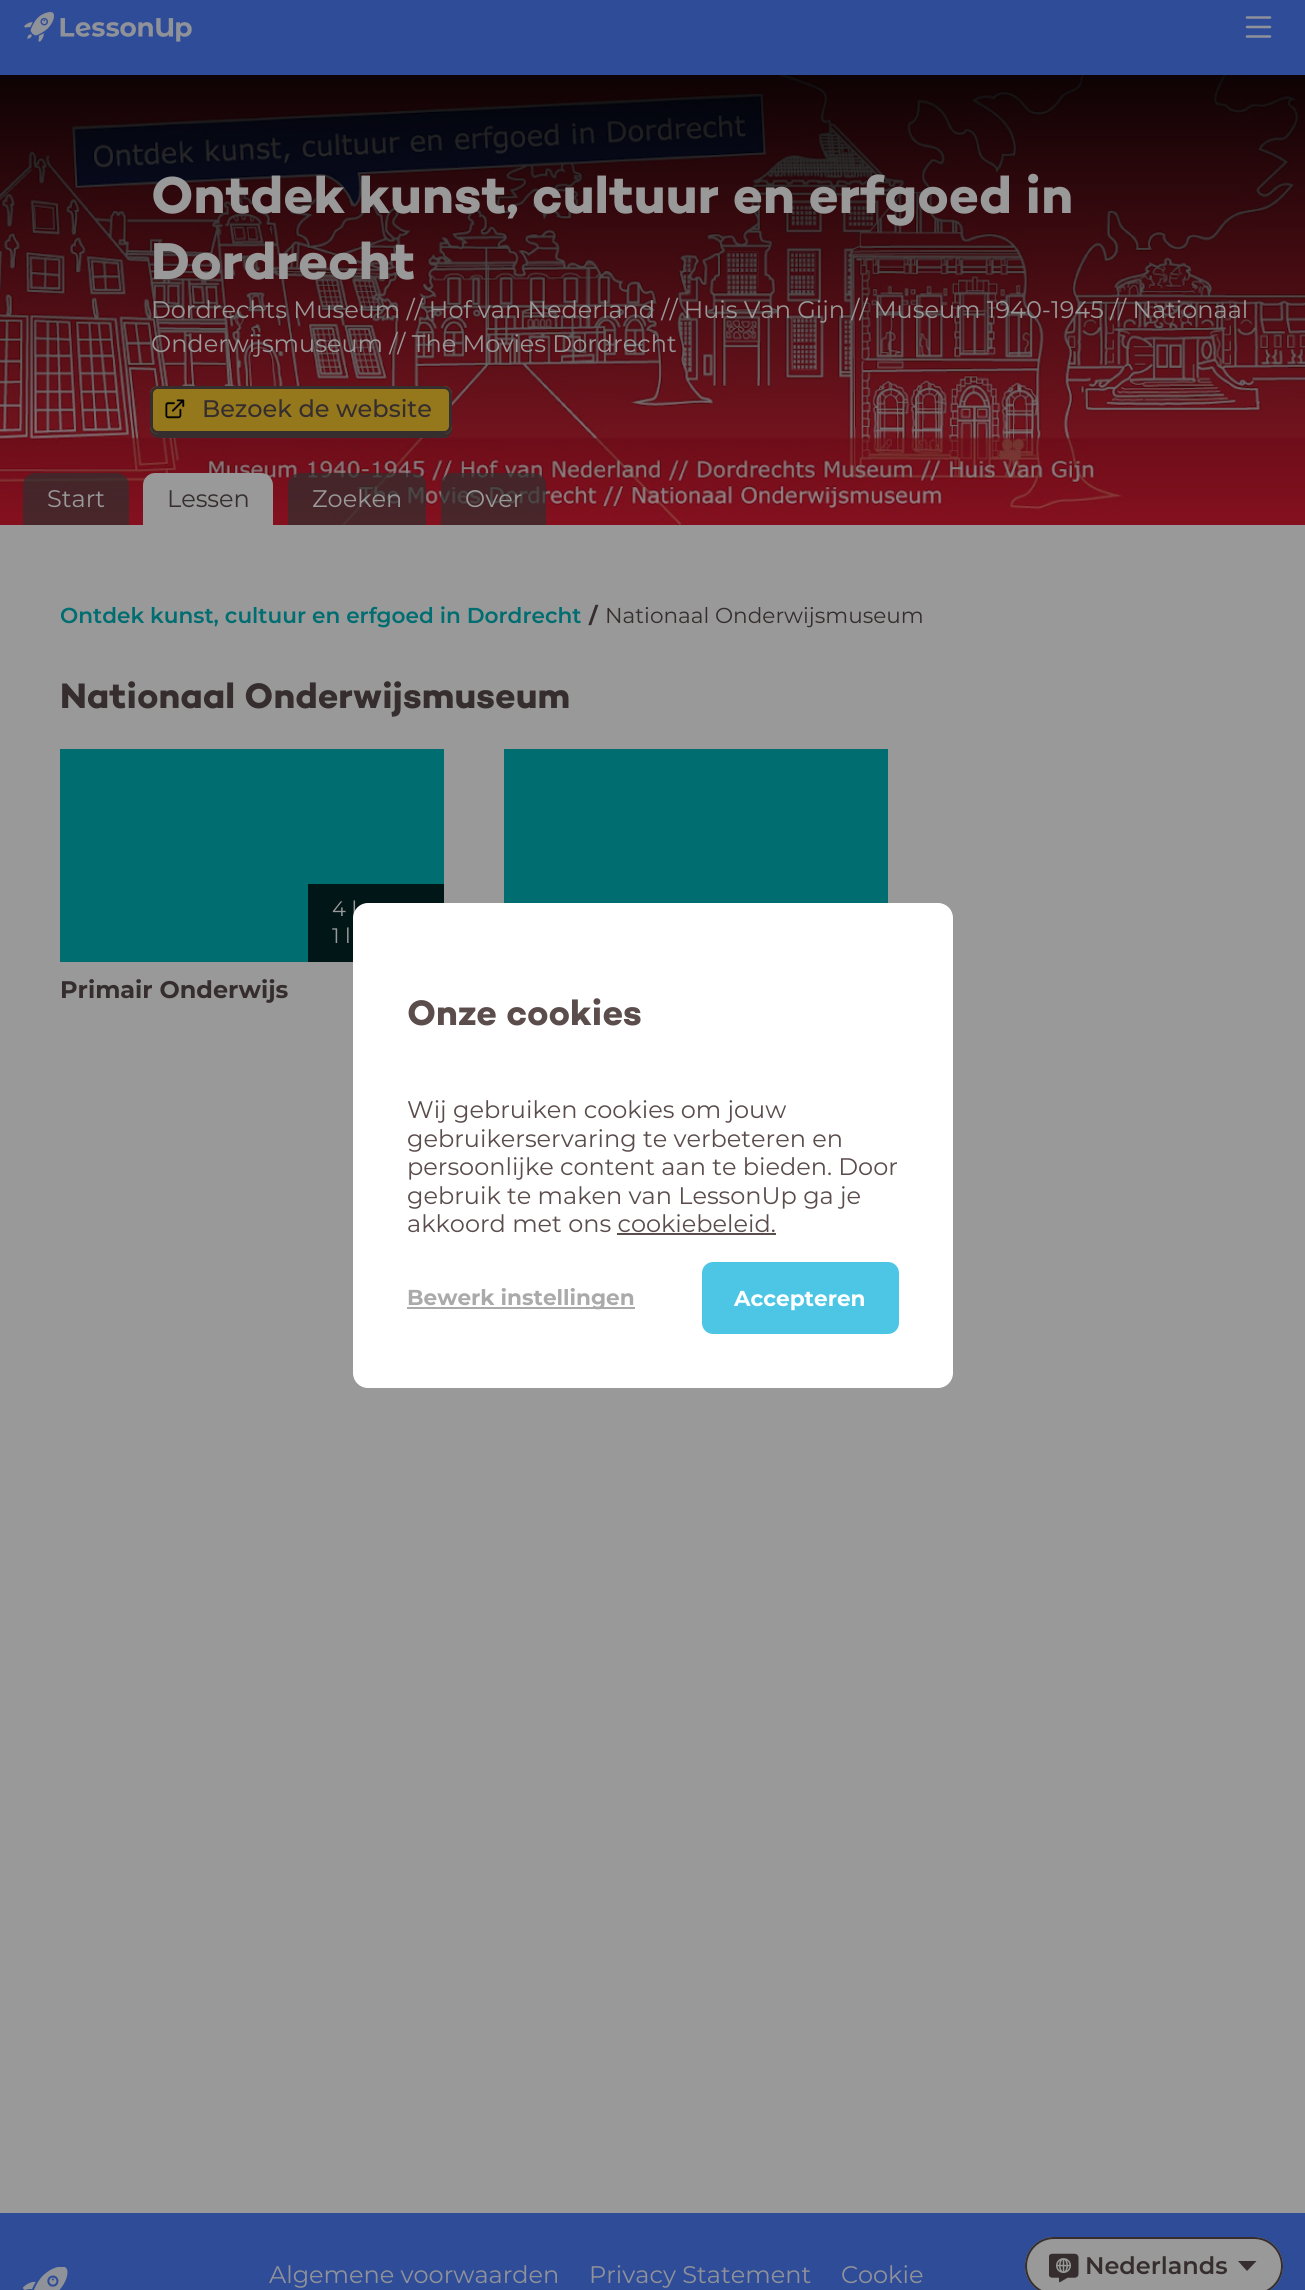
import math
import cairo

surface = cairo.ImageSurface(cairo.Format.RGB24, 1305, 2290)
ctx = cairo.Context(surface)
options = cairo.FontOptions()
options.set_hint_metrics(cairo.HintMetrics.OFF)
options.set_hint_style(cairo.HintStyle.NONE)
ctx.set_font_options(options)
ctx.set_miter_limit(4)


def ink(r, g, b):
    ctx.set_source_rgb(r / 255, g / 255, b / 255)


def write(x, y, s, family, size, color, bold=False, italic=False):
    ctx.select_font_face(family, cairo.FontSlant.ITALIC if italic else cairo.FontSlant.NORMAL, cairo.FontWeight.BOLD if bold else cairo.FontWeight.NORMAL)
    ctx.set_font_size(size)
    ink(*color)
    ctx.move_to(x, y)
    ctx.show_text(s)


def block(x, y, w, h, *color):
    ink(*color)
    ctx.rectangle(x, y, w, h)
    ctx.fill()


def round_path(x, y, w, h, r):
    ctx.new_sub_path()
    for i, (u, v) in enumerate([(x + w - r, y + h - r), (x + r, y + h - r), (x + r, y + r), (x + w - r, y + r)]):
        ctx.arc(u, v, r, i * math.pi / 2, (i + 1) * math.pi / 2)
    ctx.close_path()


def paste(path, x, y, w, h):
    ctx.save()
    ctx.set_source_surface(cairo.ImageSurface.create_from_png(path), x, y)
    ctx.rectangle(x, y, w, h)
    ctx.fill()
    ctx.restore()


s1 = dict(family="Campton", size=52.75, color=(153, 153, 153), bold=True)
s2 = dict(family="Montserrat", size=24, color=(153, 153, 153))
s3 = dict(family="Montserrat Medium", size=24, color=(54, 46, 46))
s4 = dict(family="Montserrat", size=24, color=(54, 46, 46))
s5 = dict(family="Montserrat SemiBold", size=21.6, color=(0, 109, 113))
s6 = dict(family="Montserrat", size=21.6, color=(54, 46, 46), bold=True)
s7 = dict(family="Montserrat", size=21.6, color=(54, 46, 46))
s8 = dict(family="Campton", size=36, color=(54, 46, 46), bold=True)
s9 = dict(family="Montserrat", size=21, color=(153, 153, 153))
s10 = dict(family="Montserrat", size=24, color=(54, 46, 46), bold=True)
s11 = dict(family="Montserrat", size=24, color=(143, 146, 153))
s12 = dict(family="Montserrat SemiBold", size=24, color=(54, 46, 46))
s13 = dict(family="Campton", size=36, color=(90, 77, 76), bold=True)
s14 = dict(family="Montserrat", size=24, color=(90, 77, 76))
s15 = dict(family="Montserrat", size=21.6, color=(170, 170, 170), bold=True)
s16 = dict(family="Montserrat", size=21.6, color=(255, 255, 255), bold=True)

ink(153, 153, 153)
ctx.paint()
block(0, 0, 1305, 75, 47, 76, 153)
paste("pic1.png", 24, 12, 168, 30)
ctx.new_path()
ctx.move_to(1247, 17.5)
ctx.line_to(1270, 17.5)
ctx.move_to(1247, 27)
ctx.line_to(1270, 27)
ctx.move_to(1247, 36.5)
ctx.line_to(1270, 36.5)
ink(143, 146, 153)
ctx.set_line_width(2.5)
ctx.set_line_cap(cairo.LineCap.ROUND)
ctx.set_line_join(cairo.LineJoin.ROUND)
ctx.stroke()
paste("pic2.png", 0, 75, 1305, 450)
write(151, 213, "Ontdek kunst, cultuur en erfgoed in", **s1)
write(151, 279, "Dordrecht", **s1)
write(151, 318, "Dordrechts Museum // Hof van Nederland // Huis Van Gijn // Museum 1940-1945 // Nationaal", **s2)
write(151, 352, "Onderwijsmuseum // The Movies Dordrecht", **s2)
ink(54, 46, 46)
ctx.new_path()
ctx.move_to(150, 426)
ctx.line_to(150, 430)
ctx.curve_to(150, 434, 154, 438, 158, 438)
ctx.line_to(444, 438)
ctx.curve_to(448, 438, 452, 434, 452, 430)
ctx.line_to(452, 398)
ctx.line_to(452, 395)
ctx.line_to(452, 426)
ctx.curve_to(452, 430, 448, 434, 444, 434)
ctx.line_to(158, 434)
ctx.curve_to(153, 434, 150, 430, 150, 426)
ctx.close_path()
ctx.fill()
ink(149, 120, 27)
round_path(150, 386, 302, 48, 8)
ctx.fill()
paste("pic3.png", 165, 399, 20, 20)
round_path(151.5, 387.5, 299, 45, 6.5)
ink(54, 46, 46)
ctx.set_line_width(3)
ctx.set_line_cap(cairo.LineCap.BUTT)
ctx.set_line_join(cairo.LineJoin.MITER)
ctx.stroke()
write(202, 417, "Bezoek de website", **s3)
ctx.set_source_rgba(0.188, 0.188, 0.188, 0.7)
ctx.new_path()
ctx.move_to(35, 473)
ctx.line_to(117, 473)
ctx.curve_to(123.5, 473, 129, 478.5, 129, 485)
ctx.line_to(129, 525)
ctx.line_to(23, 525)
ctx.line_to(23, 485)
ctx.curve_to(23, 478.5, 28.5, 473, 35, 473)
ctx.close_path()
ctx.fill()
write(47, 507, "Start", **s2)
ctx.new_path()
ctx.move_to(155, 473)
ctx.line_to(261, 473)
ctx.curve_to(267.5, 473, 273, 478.5, 273, 485)
ctx.line_to(273, 525)
ctx.line_to(143, 525)
ctx.line_to(143, 485)
ctx.curve_to(143, 478.5, 148.5, 473, 155, 473)
ctx.close_path()
ctx.fill()
write(167, 507, "Lessen", **s4)
ctx.set_source_rgba(0.188, 0.188, 0.188, 0.7)
ctx.new_path()
ctx.move_to(300, 473)
ctx.line_to(414, 473)
ctx.curve_to(420.5, 473, 426, 478.5, 426, 485)
ctx.line_to(426, 525)
ctx.line_to(288, 525)
ctx.line_to(288, 485)
ctx.curve_to(288, 478.5, 293.5, 473, 300, 473)
ctx.close_path()
ctx.fill()
write(312, 507, "Zoeken", **s2)
ctx.set_source_rgba(0.188, 0.188, 0.188, 0.7)
ctx.new_path()
ctx.move_to(453, 473)
ctx.line_to(534, 473)
ctx.curve_to(540.5, 473, 546, 478.5, 546, 485)
ctx.line_to(546, 525)
ctx.line_to(441, 525)
ctx.line_to(441, 485)
ctx.curve_to(441, 478.5, 446.5, 473, 453, 473)
ctx.close_path()
ctx.fill()
write(465, 507, "Over", **s2)
write(60, 623, "Ontdek kunst, cultuur en erfgoed in Dordrecht", **s5)
write(589, 623, "/", **s6)
write(605, 623, "Nationaal Onderwijsmuseum", **s7)
write(60, 708, "Nationaal Onderwijsmuseum", **s8)
block(504, 749, 384, 154, 0, 109, 113)
block(60, 749, 384, 213, 0, 109, 113)
block(308, 884, 136, 78, 0, 22, 23)
write(332, 916, "4 l", **s9)
write(332, 943, "1 l", **s9)
write(60, 998, "Primair Onderwijs", **s10)
block(0, 2213, 1305, 77, 47, 76, 153)
paste("pic4.png", 23, 2267, 45, 23)
write(269, 2283, "Algemene voorwaarden", **s11)
write(589, 2283, "Privacy Statement", **s11)
write(841, 2283, "Cookie", **s11)
ink(153, 153, 153)
round_path(1025, 2237, 258, 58, 29)
ctx.fill()
paste("pic5.png", 1049, 2253, 30, 30)
round_path(1026, 2238, 256, 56, 28)
ink(54, 46, 46)
ctx.set_line_width(2)
ctx.stroke()
write(1085, 2274, "Nederlands", **s12)
ctx.save()
ctx.rectangle(1238, 2261, 19, 10)
ctx.clip()
ctx.set_fill_rule(cairo.FillRule.EVEN_ODD)
ctx.new_path()
ctx.move_to(1237.5, 2260.5)
ctx.line_to(1257, 2260.5)
ctx.line_to(1247, 2271)
ctx.close_path()
ctx.fill()
ctx.restore()
ink(255, 255, 255)
round_path(353, 903, 600, 485, 15)
ctx.fill()
write(407, 1025, "Onze cookies", **s13)
write(407, 1118, "Wij gebruiken cookies om jouw", **s14)
write(407, 1147, "gebruikerservaring te verbeteren en", **s14)
write(407, 1175, "persoonlijke content aan te bieden. Door", **s14)
write(407, 1204, "gebruik te maken van LessonUp ga je", **s14)
write(407, 1232, "akkoord met ons cookiebeleid.", **s14)
block(617, 1233, 159, 2, 90, 77, 76)
block(407, 1307, 228, 2, 170, 170, 170)
write(407, 1305, "Bewerk instellingen", **s15)
ink(77, 198, 230)
round_path(702, 1262, 197, 72, 11)
ctx.fill()
write(734, 1306, "Accepteren", **s16)
surface.write_to_png("screenshot.png")
